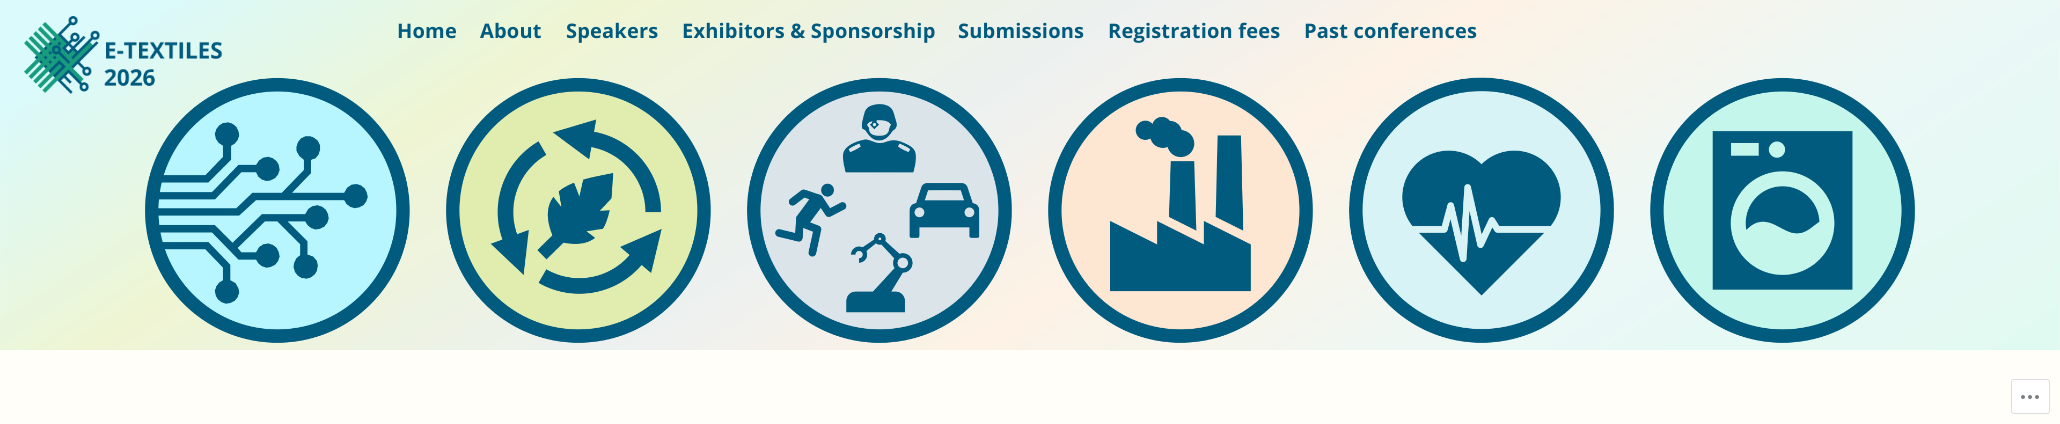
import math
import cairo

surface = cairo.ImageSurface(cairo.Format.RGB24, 2060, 424)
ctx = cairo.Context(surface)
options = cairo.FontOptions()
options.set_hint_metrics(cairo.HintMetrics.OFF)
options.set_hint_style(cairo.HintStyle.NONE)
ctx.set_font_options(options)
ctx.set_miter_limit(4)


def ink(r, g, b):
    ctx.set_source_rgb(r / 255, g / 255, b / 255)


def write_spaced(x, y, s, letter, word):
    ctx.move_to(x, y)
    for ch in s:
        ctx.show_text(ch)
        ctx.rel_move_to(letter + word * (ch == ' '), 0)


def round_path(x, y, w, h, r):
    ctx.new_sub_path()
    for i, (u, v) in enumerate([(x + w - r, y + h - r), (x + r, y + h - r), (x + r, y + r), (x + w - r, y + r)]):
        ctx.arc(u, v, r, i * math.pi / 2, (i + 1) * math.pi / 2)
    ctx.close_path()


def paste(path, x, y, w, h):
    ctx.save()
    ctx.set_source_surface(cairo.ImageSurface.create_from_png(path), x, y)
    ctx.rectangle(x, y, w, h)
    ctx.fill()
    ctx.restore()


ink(255, 254, 249)
ctx.paint()
paste("pic1.png", 0, 0, 2060, 350)
paste("pic2.png", 24, 16, 199, 78)
ctx.select_font_face("Open Sans", cairo.FontSlant.NORMAL, cairo.FontWeight.BOLD)
ctx.set_font_size(20)
ink(0, 91, 127)
write_spaced(397, 38, "Home", 0.2, 0)
write_spaced(480, 38, "About", 0.2, 0)
write_spaced(566, 38, "Speakers", 0.2, 0)
write_spaced(682, 38, "Exhibitors & Sponsorship", 0.2, 0)
write_spaced(958, 38, "Submissions", 0.2, 0)
write_spaced(1108, 38, "Registration fees", 0.2, 0)
write_spaced(1304, 38, "Past conferences", 0.2, 0)
ink(255, 255, 255)
round_path(2011.5, 379.5, 38, 34, 2.5)
ctx.fill_preserve()
ink(221, 221, 223)
ctx.set_line_width(1)
ctx.stroke()
paste("pic3.png", 2021, 395, 18, 4)
surface.write_to_png("screenshot.png")
